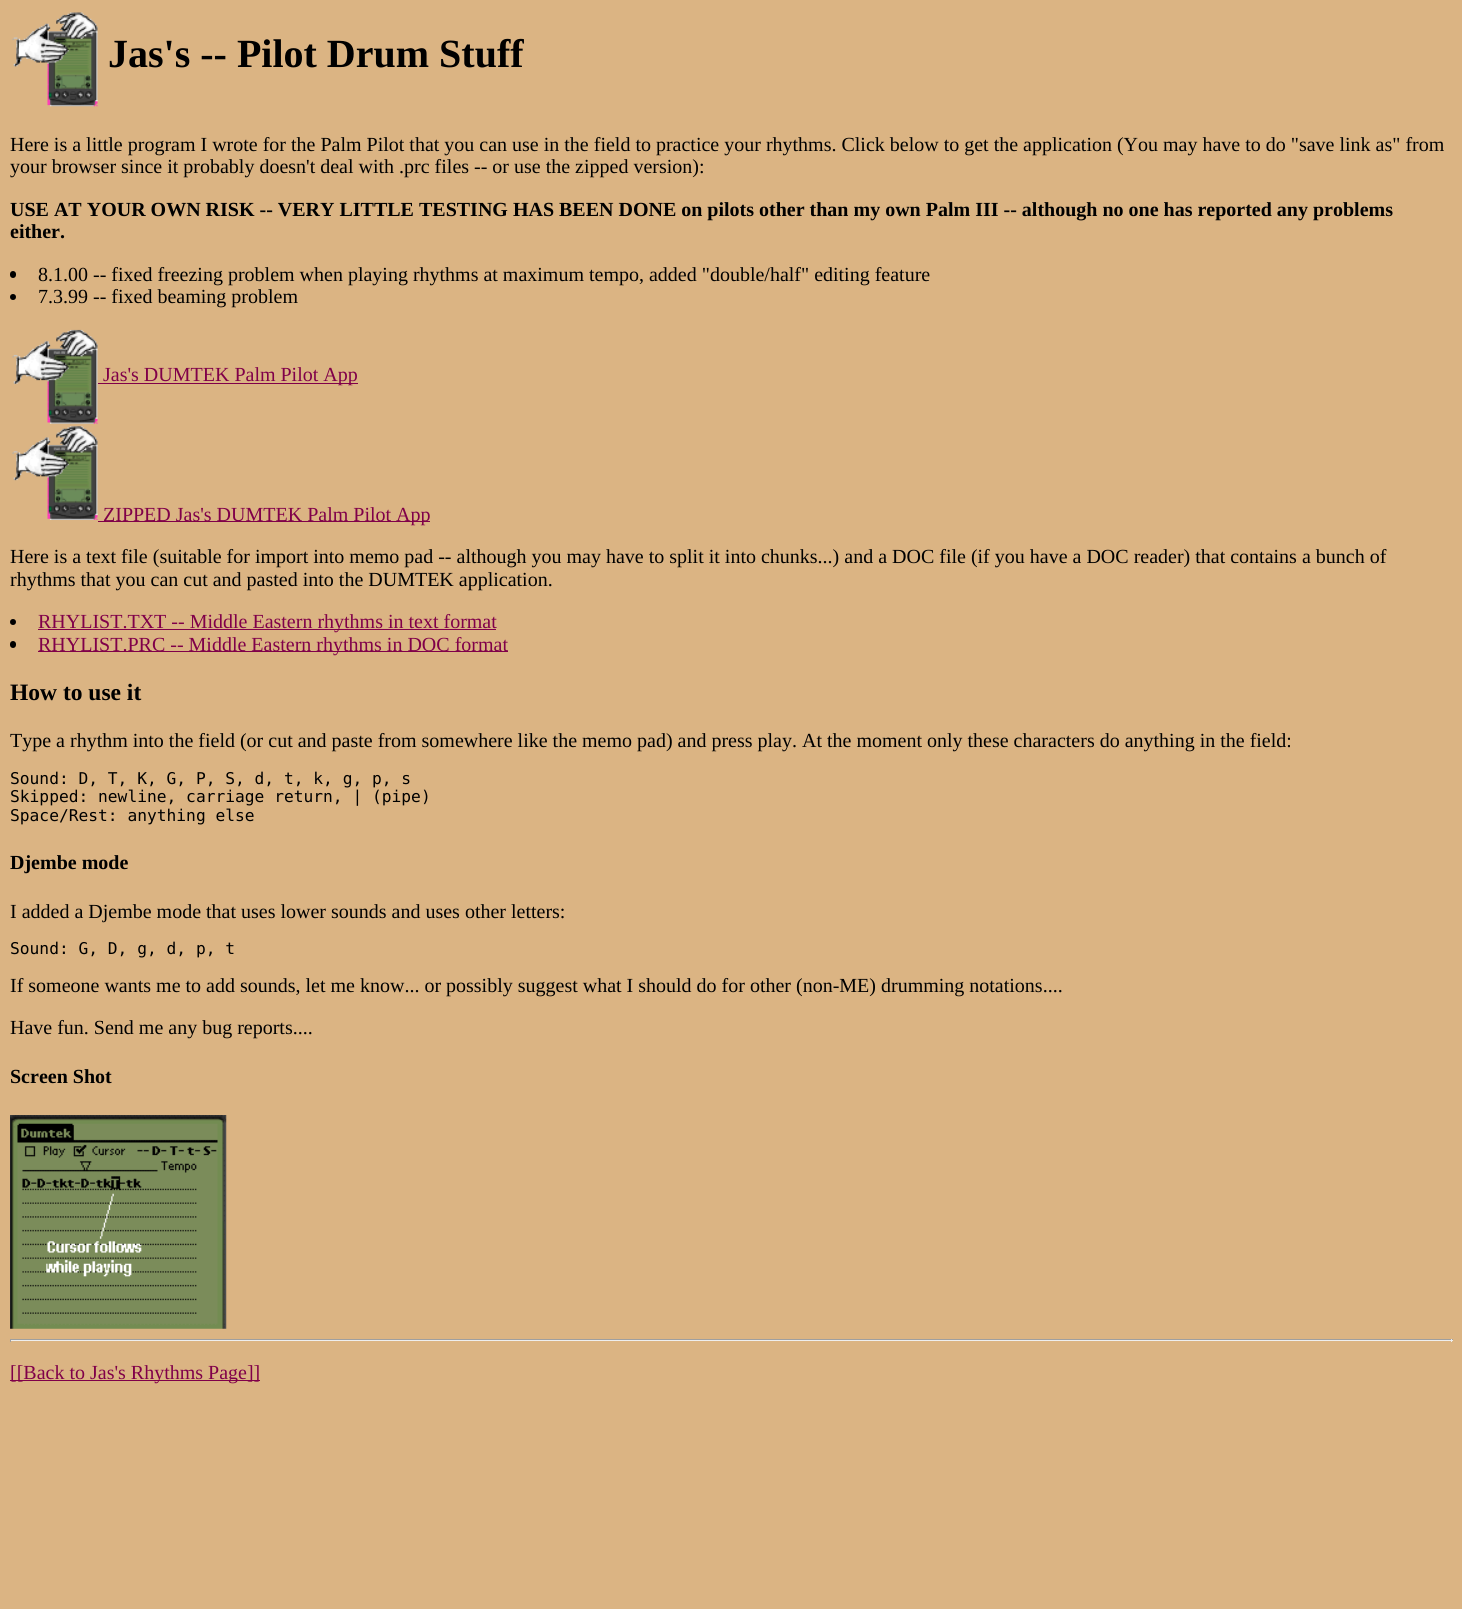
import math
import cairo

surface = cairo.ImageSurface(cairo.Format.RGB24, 1462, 1609)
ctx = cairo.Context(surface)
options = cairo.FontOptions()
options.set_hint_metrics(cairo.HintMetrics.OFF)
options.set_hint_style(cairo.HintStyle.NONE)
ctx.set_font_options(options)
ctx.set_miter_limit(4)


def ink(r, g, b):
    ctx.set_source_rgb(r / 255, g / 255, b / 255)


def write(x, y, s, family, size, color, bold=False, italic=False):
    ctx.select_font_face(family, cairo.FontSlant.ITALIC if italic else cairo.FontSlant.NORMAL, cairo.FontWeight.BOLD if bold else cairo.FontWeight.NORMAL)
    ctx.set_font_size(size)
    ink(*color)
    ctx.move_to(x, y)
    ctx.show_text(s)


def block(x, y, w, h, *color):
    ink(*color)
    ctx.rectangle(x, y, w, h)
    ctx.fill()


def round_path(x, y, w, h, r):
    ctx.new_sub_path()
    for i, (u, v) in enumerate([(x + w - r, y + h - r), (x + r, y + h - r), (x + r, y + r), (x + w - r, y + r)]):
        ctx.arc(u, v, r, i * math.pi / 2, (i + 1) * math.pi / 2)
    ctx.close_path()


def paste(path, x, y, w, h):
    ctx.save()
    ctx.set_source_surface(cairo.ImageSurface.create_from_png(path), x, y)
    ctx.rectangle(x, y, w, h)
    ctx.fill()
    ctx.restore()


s1 = dict(family="Liberation Serif", size=40, color=(0, 0, 0), bold=True)
s2 = dict(family="Liberation Serif", size=20, color=(0, 0, 0))
s3 = dict(family="Liberation Serif", size=20, color=(0, 0, 0), bold=True)
s4 = dict(family="Liberation Serif", size=20, color=(128, 0, 73))
s5 = dict(family="Liberation Serif", size=23.5, color=(0, 0, 0), bold=True)
s6 = dict(family="DejaVu Sans Mono", size=16.25, color=(0, 0, 0))

ink(219, 180, 131)
ctx.paint()
paste("pic1.png", 12, 12, 86, 95)
write(108, 67, "Jas's -- Pilot Drum Stuff", **s1)
write(10, 151, "Here is a little program I wrote for the Palm Pilot that you can use in the field to practice your rhythms. Click below to get the application (You may have to do \"save link as\" from", **s2)
write(10, 173, "your browser since it probably doesn't deal with .prc files -- or use the zipped version):", **s2)
write(10, 216, "USE AT YOUR OWN RISK -- VERY LITTLE TESTING HAS BEEN DONE on pilots other than my own Palm III -- although no one has reported any problems", **s3)
write(10, 238, "either.", **s3)
round_path(10, 271, 6, 7, 3)
ctx.fill()
write(38, 281, "8.1.00 -- fixed freezing problem when playing rhythms at maximum tempo, added \"double/half\" editing feature", **s2)
ctx.new_path()
ctx.arc(13, 297, 3, 0, 2 * math.pi)
ctx.fill()
write(38, 303, "7.3.99 -- fixed beaming problem", **s2)
paste("pic2.png", 12, 329, 86, 95)
block(98, 383, 260, 1, 128, 0, 73)
write(103, 381, "Jas's DUMTEK Palm Pilot App", **s4)
paste("pic3.png", 12, 426, 86, 94)
block(98, 521, 332, 1, 128, 0, 73)
write(103, 521, "ZIPPED Jas's DUMTEK Palm Pilot App", **s4)
write(10, 563, "Here is a text file (suitable for import into memo pad -- although you may have to split it into chunks...) and a DOC file (if you have a DOC reader) that contains a bunch of", **s2)
write(10, 586, "rhythms that you can cut and pasted into the DUMTEK application.", **s2)
ctx.new_path()
ctx.arc(13, 622, 3, 0, 2 * math.pi)
ctx.fill()
block(38, 629, 458, 1, 128, 0, 73)
write(38, 628, "RHYLIST.TXT -- Middle Eastern rhythms in text format", **s4)
ink(0, 0, 0)
round_path(10, 641, 6, 7, 3)
ctx.fill()
block(38, 651, 470, 1, 128, 0, 73)
write(38, 651, "RHYLIST.PRC -- Middle Eastern rhythms in DOC format", **s4)
write(10, 700, "How to use it", **s5)
write(10, 747, "Type a rhythm into the field (or cut and paste from somewhere like the memo pad) and press play. At the moment only these characters do anything in the field:", **s2)
write(10, 784, "Sound: D, T, K, G, P, S, d, t, k, g, p, s", **s6)
write(10, 802, "Skipped: newline, carriage return, | (pipe)", **s6)
write(10, 821, "Space/Rest: anything else", **s6)
write(10, 869, "Djembe mode", **s3)
write(10, 918, "I added a Djembe mode that uses lower sounds and uses other letters:", **s2)
write(10, 954, "Sound: G, D, g, d, p, t", **s6)
write(10, 992, "If someone wants me to add sounds, let me know... or possibly suggest what I should do for other (non-ME) drumming notations....", **s2)
write(10, 1034, "Have fun. Send me any bug reports....", **s2)
write(10, 1083, "Screen Shot", **s3)
paste("pic4.png", 10, 1115, 217, 214)
block(10, 1339, 1443, 1, 159, 159, 159)
block(1451, 1339, 1, 3, 238, 238, 238)
block(10, 1340, 1443, 1, 238, 238, 238)
block(10, 1339, 1, 3, 159, 159, 159)
block(10, 1380, 250, 1, 128, 0, 73)
write(10, 1379, "[[Back to Jas's Rhythms Page]]", **s4)
surface.write_to_png("screenshot.png")
